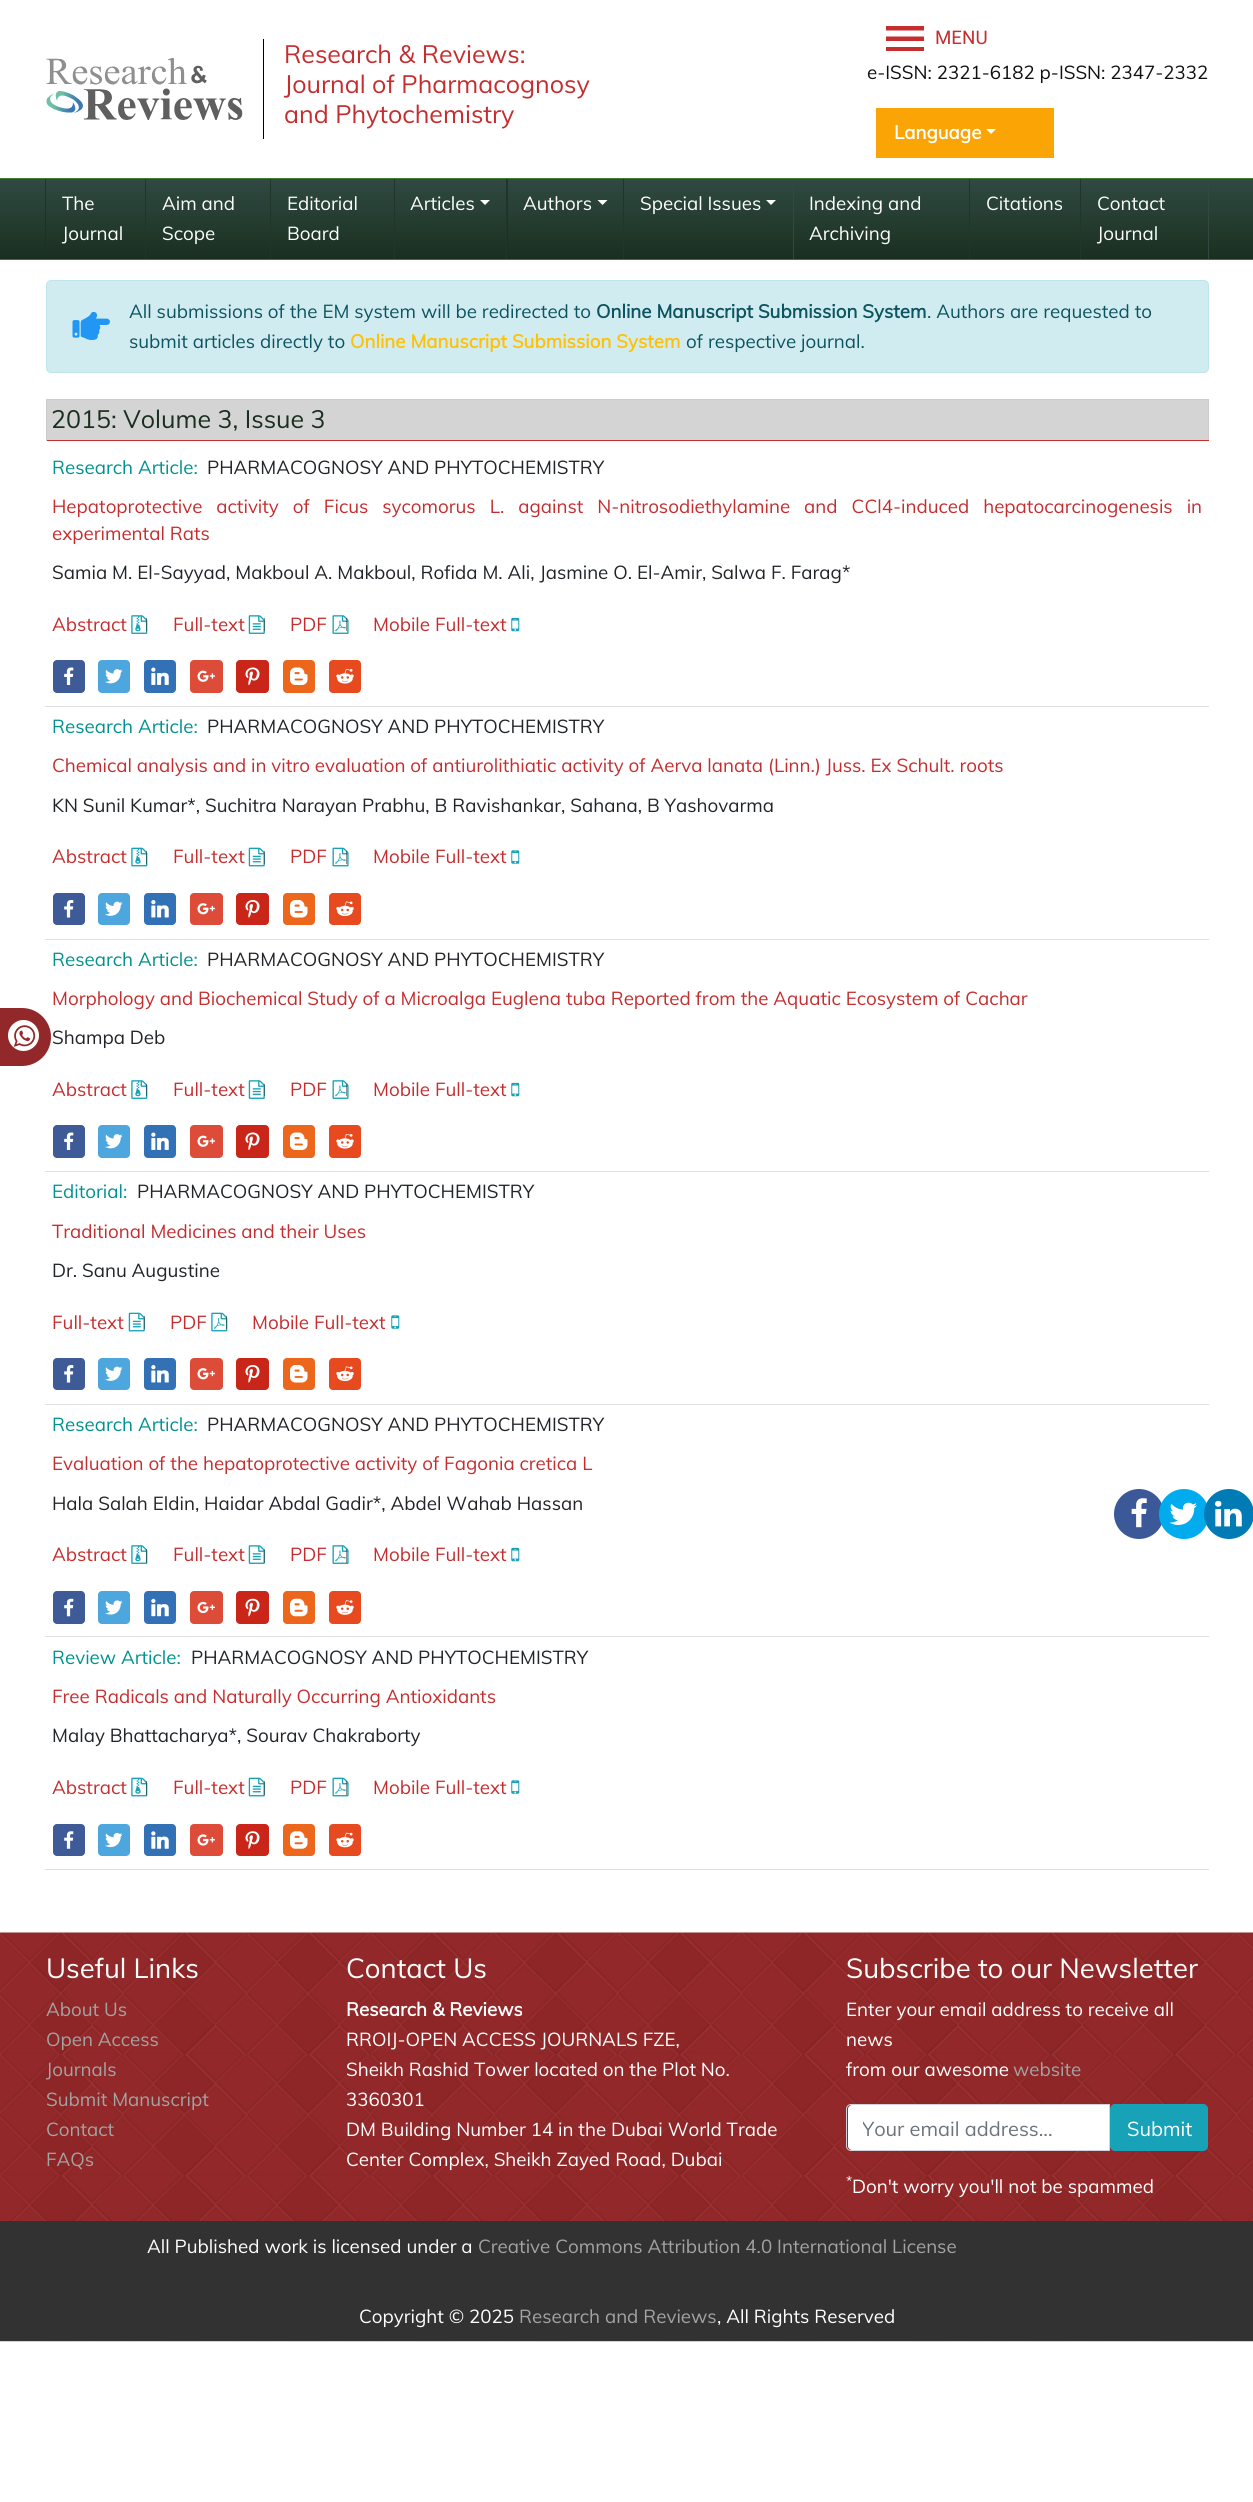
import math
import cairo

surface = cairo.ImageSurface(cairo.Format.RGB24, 1253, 2502)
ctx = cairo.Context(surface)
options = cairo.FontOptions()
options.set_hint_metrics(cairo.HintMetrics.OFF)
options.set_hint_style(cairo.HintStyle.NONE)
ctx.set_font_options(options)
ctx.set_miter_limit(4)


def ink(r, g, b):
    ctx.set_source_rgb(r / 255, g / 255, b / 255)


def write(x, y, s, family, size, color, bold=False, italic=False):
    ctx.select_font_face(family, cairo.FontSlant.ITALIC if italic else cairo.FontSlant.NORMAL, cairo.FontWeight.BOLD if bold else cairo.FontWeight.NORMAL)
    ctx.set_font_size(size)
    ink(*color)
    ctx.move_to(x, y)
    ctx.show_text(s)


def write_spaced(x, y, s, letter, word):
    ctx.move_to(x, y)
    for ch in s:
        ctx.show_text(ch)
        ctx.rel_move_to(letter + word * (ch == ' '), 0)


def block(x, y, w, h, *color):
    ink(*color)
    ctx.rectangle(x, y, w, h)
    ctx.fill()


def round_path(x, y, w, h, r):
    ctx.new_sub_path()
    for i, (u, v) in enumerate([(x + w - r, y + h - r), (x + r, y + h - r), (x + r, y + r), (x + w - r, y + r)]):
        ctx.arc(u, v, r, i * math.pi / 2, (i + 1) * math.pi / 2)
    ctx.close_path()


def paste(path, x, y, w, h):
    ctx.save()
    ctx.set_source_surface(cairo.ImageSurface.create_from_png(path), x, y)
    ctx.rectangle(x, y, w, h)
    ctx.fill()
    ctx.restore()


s1 = dict(family="Muli", size=25, color=(197, 45, 47))
s2 = dict(family="Roboto", size=18.75, color=(197, 45, 47))
s3 = dict(family="Muli", size=18.75, color=(16, 16, 16))
s4 = dict(family="Muli", size=18.75, color=(255, 255, 255), bold=True)
s5 = dict(family="Muli", size=18.75, color=(255, 255, 255))
s6 = dict(family="Muli", size=18.75, color=(12, 84, 96))
s7 = dict(family="Muli", size=18.75, color=(12, 84, 96), bold=True)
s8 = dict(family="Muli", size=18.75, color=(255, 193, 7), bold=True)
s9 = dict(family="Muli", size=25, color=(26, 47, 32))
s10 = dict(family="Muli", size=18.75, color=(0, 145, 145))
s11 = dict(family="Muli", size=18.75, color=(33, 37, 41))
s12 = dict(family="Muli", size=18.75, color=(197, 45, 47))
s13 = dict(family="Muli", size=27.5, color=(255, 255, 255))
s14 = dict(family="Muli", size=18.75, color=(163, 163, 163))
s15 = dict(family="Muli", size=20, color=(108, 117, 125))
s16 = dict(family="Muli", size=20, color=(255, 255, 255))
s17 = dict(family="Muli", size=14, color=(255, 255, 255))

ink(255, 255, 255)
ctx.paint()
paste("pic1.png", 46, 58, 197, 62)
block(263, 39, 1, 100, 0, 0, 0)
write(284, 63, "Research & Reviews:", **s1)
write(284, 93, "Journal of Pharmacognosy", **s1)
write(284, 123, "and Phytochemistry", **s1)
write(935, 44, "MENU", **s2)
ctx.new_path()
ctx.move_to(886, 51)
ctx.line_to(924, 51)
ctx.line_to(924, 47)
ctx.line_to(886, 47)
ctx.close_path()
ctx.move_to(886, 41)
ctx.line_to(924, 41)
ctx.line_to(924, 36.5)
ctx.line_to(886, 36.5)
ctx.close_path()
ctx.move_to(886, 26)
ctx.line_to(886, 30.5)
ctx.line_to(924, 30.5)
ctx.line_to(924, 26)
ctx.close_path()
ctx.fill()
write(867, 79, "e-ISSN: 2321-6182 p-ISSN: 2347-2332", **s3)
block(876, 108, 178, 50, 251, 164, 5)
write(894, 139, "Language", **s4)
ctx.new_path()
ctx.move_to(986, 129)
ctx.line_to(996, 129)
ctx.line_to(991, 134)
ctx.close_path()
ctx.fill()
gradient = cairo.LinearGradient(627, 179, 627, 259)
gradient.add_color_stop_rgba(0, 0.188, 0.29, 0.259, 1)
gradient.add_color_stop_rgba(1, 0.102, 0.184, 0.125, 1)
ctx.set_source(gradient)
ctx.rectangle(0, 179, 1253, 80)
ctx.fill()
block(0, 178, 1253, 1, 70, 120, 55)
block(0, 259, 1253, 1, 197, 45, 47)
ctx.set_source_rgba(0.102, 0.184, 0.125, 0.75)
ctx.new_path()
ctx.move_to(45, 179)
ctx.line_to(45, 259)
ctx.line_to(145, 259)
ctx.line_to(46, 259)
ctx.line_to(46, 179)
ctx.close_path()
ctx.fill()
write(62, 210, "The", **s5)
write(62, 240, "Journal", **s5)
ink(32, 54, 41)
ctx.new_path()
ctx.move_to(145, 179)
ctx.line_to(145, 259)
ctx.line_to(270, 259)
ctx.line_to(146, 259)
ctx.line_to(146, 179)
ctx.close_path()
ctx.fill()
write(162, 210, "Aim and", **s5)
write(162, 240, "Scope", **s5)
ink(32, 54, 41)
ctx.new_path()
ctx.move_to(270, 179)
ctx.line_to(270, 259)
ctx.line_to(394, 259)
ctx.line_to(271, 259)
ctx.line_to(271, 179)
ctx.close_path()
ctx.fill()
write(287, 210, "Editorial", **s5)
write(287, 240, "Board", **s5)
ink(32, 54, 41)
ctx.new_path()
ctx.move_to(394, 179)
ctx.line_to(394, 259)
ctx.line_to(506, 259)
ctx.line_to(395, 259)
ctx.line_to(395, 179)
ctx.close_path()
ctx.fill()
block(506, 179, 1, 80, 48, 74, 66)
write(410, 210, "Articles", **s5)
ctx.new_path()
ctx.move_to(480, 200)
ctx.line_to(490, 200)
ctx.line_to(485, 205)
ctx.close_path()
ctx.fill()
ctx.set_source_rgba(0.102, 0.184, 0.125, 0.75)
ctx.new_path()
ctx.move_to(506, 179)
ctx.line_to(506, 259)
ctx.line_to(623, 259)
ctx.line_to(508, 259)
ctx.line_to(508, 179)
ctx.close_path()
ctx.fill()
write(523, 210, "Authors", **s5)
ctx.new_path()
ctx.move_to(597.5, 200)
ctx.line_to(607.5, 200)
ctx.line_to(602.5, 205)
ctx.close_path()
ctx.fill()
ink(32, 54, 41)
ctx.new_path()
ctx.move_to(623, 179)
ctx.line_to(623, 259)
ctx.line_to(793, 259)
ctx.line_to(624, 259)
ctx.line_to(624, 179)
ctx.close_path()
ctx.fill()
block(793, 179, 1, 80, 48, 74, 66)
write(640, 210, "Special Issues", **s5)
ctx.new_path()
ctx.move_to(766, 200)
ctx.line_to(776, 200)
ctx.line_to(771, 205)
ctx.close_path()
ctx.fill()
write(809, 210, "Indexing and", **s5)
write(809, 240, "Archiving", **s5)
ink(32, 54, 41)
ctx.new_path()
ctx.move_to(969, 179)
ctx.line_to(969, 259)
ctx.line_to(1080, 259)
ctx.line_to(970, 259)
ctx.line_to(970, 179)
ctx.close_path()
ctx.fill()
write(986, 210, "Citations", **s5)
ink(32, 54, 41)
ctx.new_path()
ctx.move_to(1080, 179)
ctx.line_to(1080, 259)
ctx.line_to(1208, 259)
ctx.line_to(1081, 259)
ctx.line_to(1081, 179)
ctx.close_path()
ctx.fill()
block(1208, 179, 1, 80, 48, 74, 66)
write(1097, 210, "Contact", **s5)
write(1097, 240, "Journal", **s5)
ink(209, 236, 241)
round_path(46.5, 280.5, 1162, 92, 4.5)
ctx.fill_preserve()
ink(190, 229, 235)
ctx.set_line_width(1)
ctx.stroke()
paste("pic2.png", 72, 311, 38, 29)
write(129, 318, "All submissions of the EM system will be redirected to", **s6)
write(596, 318, "Online Manuscript Submission System", **s7)
write(927, 318, ". Authors are requested to", **s6)
write(129, 348, "submit articles directly to", **s6)
write(350, 348, "Online Manuscript Submission System", **s8)
write(686, 348, "of respective journal.", **s6)
ink(146, 40, 41)
ctx.new_path()
ctx.move_to(-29, 1008)
ctx.line_to(22, 1008)
ctx.curve_to(38, 1008, 51, 1021, 51, 1037)
ctx.curve_to(51, 1053, 38, 1066, 22, 1066)
ctx.line_to(-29, 1066)
ctx.close_path()
ctx.fill()
ink(255, 255, 255)
ctx.arc(23.5, 1035.5, 15.5, 0, 2 * math.pi)
ctx.fill()
paste("pic3.png", 13, 1025, 23, 22)
block(47, 400, 1161, 40, 212, 212, 212)
block(46, 399, 1163, 1, 204, 204, 204)
block(1208, 399, 1, 42, 204, 204, 204)
block(46, 440, 1163, 1, 197, 45, 47)
block(46, 399, 1, 42, 204, 204, 204)
write(51, 428, "2015: Volume 3, Issue 3", **s9)
write(52, 474, "Research Article:", **s10)
write(207, 474, "PHARMACOGNOSY AND PHYTOCHEMISTRY", **s11)
ink(197, 45, 47)
write_spaced(52, 513, "Hepatoprotective activity of Ficus sycomorus L. against N-nitrosodiethylamine and CCl4-induced hepatocarcinogenesis in", 0, 9.1)
write(52, 540, "experimental Rats", **s12)
write(52, 579, "Samia M. El-Sayyad, Makboul A. Makboul, Rofida M. Ali, Jasmine O. El-Amir, Salwa F. Farag*", **s11)
write(52, 631, "Abstract", **s12)
paste("pic4.png", 131, 615, 17, 19)
ctx.set_source_rgba(0.133, 0.141, 0.149, 0.5)
ctx.rectangle(146, 618, 1, 13)
ctx.fill()
write(173, 631, "Full-text", **s12)
paste("pic5.png", 248, 615, 17, 19)
ctx.set_source_rgba(0.133, 0.141, 0.149, 0.5)
ctx.rectangle(264, 618, 1, 13)
ctx.fill()
write(290, 631, "PDF", **s12)
paste("pic6.png", 332, 615, 17, 19)
ctx.set_source_rgba(0.133, 0.141, 0.149, 0.5)
ctx.rectangle(346, 618, 1, 13)
ctx.fill()
write(373, 631, "Mobile Full-text", **s12)
paste("pic7.png", 511, 617, 9, 15)
block(45, 706, 1164, 1, 224, 224, 224)
ink(62, 91, 152)
round_path(53, 660, 32, 33, 4)
ctx.fill()
paste("pic8.png", 64, 667, 10, 18)
ink(77, 167, 222)
round_path(98, 660, 32, 33, 4)
ctx.fill()
paste("pic9.png", 105, 669, 18, 15)
ink(51, 113, 183)
round_path(144, 660, 32, 33, 4)
ctx.fill()
paste("pic10.png", 151, 667, 18, 18)
ink(221, 75, 57)
round_path(190, 660, 33, 33, 4)
ctx.fill()
paste("pic11.png", 197, 670, 18, 12)
ink(201, 38, 25)
round_path(236, 660, 33, 33, 4)
ctx.fill()
paste("pic12.png", 245, 667, 15, 18)
ink(236, 102, 28)
round_path(283, 660, 32, 33, 4)
ctx.fill()
paste("pic13.png", 290, 667, 18, 18)
ink(231, 74, 30)
round_path(329, 660, 32, 33, 4)
ctx.fill()
paste("pic14.png", 336, 669, 18, 15)
write(52, 733, "Research Article:", **s10)
write(207, 733, "PHARMACOGNOSY AND PHYTOCHEMISTRY", **s11)
write(52, 772, "Chemical analysis and in vitro evaluation of antiurolithiatic activity of Aerva lanata (Linn.) Juss. Ex Schult. roots", **s12)
write(52, 812, "KN Sunil Kumar*, Suchitra Narayan Prabhu, B Ravishankar, Sahana, B Yashovarma", **s11)
write(52, 863, "Abstract", **s12)
paste("pic15.png", 131, 847, 17, 20)
ctx.set_source_rgba(0.133, 0.141, 0.149, 0.5)
ctx.rectangle(146, 851, 1, 13)
ctx.fill()
write(173, 863, "Full-text", **s12)
paste("pic16.png", 248, 847, 17, 20)
ctx.set_source_rgba(0.133, 0.141, 0.149, 0.5)
ctx.rectangle(264, 851, 1, 13)
ctx.fill()
write(290, 863, "PDF", **s12)
paste("pic17.png", 332, 847, 17, 20)
ctx.set_source_rgba(0.133, 0.141, 0.149, 0.5)
ctx.rectangle(346, 851, 1, 13)
ctx.fill()
write(373, 863, "Mobile Full-text", **s12)
paste("pic18.png", 511, 850, 9, 14)
block(45, 939, 1164, 1, 224, 224, 224)
ink(62, 91, 152)
round_path(53, 893, 32, 32, 4)
ctx.fill()
paste("pic19.png", 64, 900, 10, 18)
ink(77, 167, 222)
round_path(98, 893, 32, 32, 4)
ctx.fill()
paste("pic20.png", 105, 901, 18, 15)
ink(51, 113, 183)
round_path(144, 893, 32, 32, 4)
ctx.fill()
paste("pic21.png", 151, 900, 18, 18)
ink(221, 75, 57)
round_path(190, 893, 33, 32, 4)
ctx.fill()
paste("pic22.png", 197, 903, 18, 12)
ink(201, 38, 25)
round_path(236, 893, 33, 32, 4)
ctx.fill()
paste("pic23.png", 245, 900, 15, 18)
ink(236, 102, 28)
round_path(283, 893, 32, 32, 4)
ctx.fill()
paste("pic24.png", 290, 900, 18, 18)
ink(231, 74, 30)
round_path(329, 893, 32, 32, 4)
ctx.fill()
paste("pic25.png", 336, 901, 18, 16)
write(52, 966, "Research Article:", **s10)
write(207, 966, "PHARMACOGNOSY AND PHYTOCHEMISTRY", **s11)
write(52, 1005, "Morphology and Biochemical Study of a Microalga Euglena tuba Reported from the Aquatic Ecosystem of Cachar", **s12)
write(52, 1044, "Shampa Deb", **s11)
write(52, 1096, "Abstract", **s12)
paste("pic4.png", 131, 1080, 17, 19)
ctx.set_source_rgba(0.133, 0.141, 0.149, 0.5)
ctx.rectangle(146, 1084, 1, 12)
ctx.fill()
write(173, 1096, "Full-text", **s12)
paste("pic5.png", 248, 1080, 17, 19)
ctx.set_source_rgba(0.133, 0.141, 0.149, 0.5)
ctx.rectangle(264, 1084, 1, 12)
ctx.fill()
write(290, 1096, "PDF", **s12)
paste("pic6.png", 332, 1080, 17, 19)
ctx.set_source_rgba(0.133, 0.141, 0.149, 0.5)
ctx.rectangle(346, 1084, 1, 12)
ctx.fill()
write(373, 1096, "Mobile Full-text", **s12)
paste("pic7.png", 511, 1082, 9, 15)
block(45, 1171, 1164, 1, 224, 224, 224)
ink(62, 91, 152)
round_path(53, 1125, 32, 33, 4)
ctx.fill()
paste("pic8.png", 64, 1132, 10, 18)
ink(77, 167, 222)
round_path(98, 1125, 32, 33, 4)
ctx.fill()
paste("pic9.png", 105, 1134, 18, 15)
ink(51, 113, 183)
round_path(144, 1125, 32, 33, 4)
ctx.fill()
paste("pic10.png", 151, 1132, 18, 18)
ink(221, 75, 57)
round_path(190, 1125, 33, 33, 4)
ctx.fill()
paste("pic11.png", 197, 1135, 18, 12)
ink(201, 38, 25)
round_path(236, 1125, 33, 33, 4)
ctx.fill()
paste("pic12.png", 245, 1132, 15, 18)
ink(236, 102, 28)
round_path(283, 1125, 32, 33, 4)
ctx.fill()
paste("pic13.png", 290, 1132, 18, 18)
ink(231, 74, 30)
round_path(329, 1125, 32, 33, 4)
ctx.fill()
paste("pic14.png", 336, 1134, 18, 15)
write(52, 1198, "Editorial:", **s10)
write(137, 1198, "PHARMACOGNOSY AND PHYTOCHEMISTRY", **s11)
write(52, 1238, "Traditional Medicines and their Uses", **s12)
write(52, 1277, "Dr. Sanu Augustine", **s11)
write(52, 1329, "Full-text", **s12)
paste("pic16.png", 128, 1312, 17, 20)
ctx.set_source_rgba(0.133, 0.141, 0.149, 0.5)
ctx.rectangle(144, 1316, 1, 13)
ctx.fill()
write(170, 1329, "PDF", **s12)
paste("pic26.png", 211, 1312, 17, 20)
ctx.set_source_rgba(0.133, 0.141, 0.149, 0.5)
ctx.rectangle(226, 1316, 1, 13)
ctx.fill()
write(252, 1329, "Mobile Full-text", **s12)
paste("pic18.png", 391, 1315, 9, 14)
block(45, 1404, 1164, 1, 224, 224, 224)
ink(62, 91, 152)
round_path(53, 1358, 32, 32, 4)
ctx.fill()
paste("pic19.png", 64, 1365, 10, 18)
ink(77, 167, 222)
round_path(98, 1358, 32, 32, 4)
ctx.fill()
paste("pic20.png", 105, 1366, 18, 15)
ink(51, 113, 183)
round_path(144, 1358, 32, 32, 4)
ctx.fill()
paste("pic21.png", 151, 1365, 18, 18)
ink(221, 75, 57)
round_path(190, 1358, 33, 32, 4)
ctx.fill()
paste("pic22.png", 197, 1368, 18, 12)
ink(201, 38, 25)
round_path(236, 1358, 33, 32, 4)
ctx.fill()
paste("pic23.png", 245, 1365, 15, 18)
ink(236, 102, 28)
round_path(283, 1358, 32, 32, 4)
ctx.fill()
paste("pic24.png", 290, 1365, 18, 18)
ink(231, 74, 30)
round_path(329, 1358, 32, 32, 4)
ctx.fill()
paste("pic25.png", 336, 1366, 18, 16)
write(52, 1431, "Research Article:", **s10)
write(207, 1431, "PHARMACOGNOSY AND PHYTOCHEMISTRY", **s11)
write(52, 1470, "Evaluation of the hepatoprotective activity of Fagonia cretica L", **s12)
write(52, 1510, "Hala Salah Eldin, Haidar Abdal Gadir*, Abdel Wahab Hassan", **s11)
write(52, 1561, "Abstract", **s12)
paste("pic4.png", 131, 1545, 17, 19)
ctx.set_source_rgba(0.133, 0.141, 0.149, 0.5)
ctx.rectangle(146, 1549, 1, 14)
ctx.fill()
write(173, 1561, "Full-text", **s12)
paste("pic5.png", 248, 1545, 17, 19)
ctx.set_source_rgba(0.133, 0.141, 0.149, 0.5)
ctx.rectangle(264, 1549, 1, 14)
ctx.fill()
write(290, 1561, "PDF", **s12)
paste("pic6.png", 332, 1545, 17, 19)
ctx.set_source_rgba(0.133, 0.141, 0.149, 0.5)
ctx.rectangle(346, 1549, 1, 14)
ctx.fill()
write(373, 1561, "Mobile Full-text", **s12)
paste("pic7.png", 511, 1547, 9, 15)
block(45, 1636, 1164, 1, 224, 224, 224)
ink(62, 91, 152)
round_path(53, 1591, 32, 33, 4)
ctx.fill()
paste("pic27.png", 64, 1598, 10, 19)
ink(77, 167, 222)
round_path(98, 1591, 32, 33, 4)
ctx.fill()
paste("pic28.png", 105, 1600, 18, 15)
ink(51, 113, 183)
round_path(144, 1591, 32, 33, 4)
ctx.fill()
paste("pic29.png", 151, 1598, 18, 19)
ink(221, 75, 57)
round_path(190, 1591, 33, 33, 4)
ctx.fill()
paste("pic30.png", 197, 1601, 18, 13)
ink(201, 38, 25)
round_path(236, 1591, 33, 33, 4)
ctx.fill()
paste("pic31.png", 245, 1598, 15, 19)
ink(236, 102, 28)
round_path(283, 1591, 32, 33, 4)
ctx.fill()
paste("pic32.png", 290, 1598, 18, 19)
ink(231, 74, 30)
round_path(329, 1591, 32, 33, 4)
ctx.fill()
paste("pic33.png", 336, 1600, 18, 15)
write(52, 1664, "Review Article:", **s10)
write(191, 1664, "PHARMACOGNOSY AND PHYTOCHEMISTRY", **s11)
write(52, 1703, "Free Radicals and Naturally Occurring Antioxidants", **s12)
write(52, 1742, "Malay Bhattacharya*, Sourav Chakraborty", **s11)
write(52, 1794, "Abstract", **s12)
paste("pic15.png", 131, 1777, 17, 20)
ctx.set_source_rgba(0.133, 0.141, 0.149, 0.5)
ctx.rectangle(146, 1781, 1, 14)
ctx.fill()
write(173, 1794, "Full-text", **s12)
paste("pic16.png", 248, 1777, 17, 20)
ctx.set_source_rgba(0.133, 0.141, 0.149, 0.5)
ctx.rectangle(264, 1781, 1, 14)
ctx.fill()
write(290, 1794, "PDF", **s12)
paste("pic17.png", 332, 1777, 17, 20)
ctx.set_source_rgba(0.133, 0.141, 0.149, 0.5)
ctx.rectangle(346, 1781, 1, 14)
ctx.fill()
write(373, 1794, "Mobile Full-text", **s12)
paste("pic18.png", 511, 1780, 9, 14)
block(45, 1869, 1164, 1, 224, 224, 224)
ink(62, 91, 152)
round_path(53, 1824, 32, 32, 4)
ctx.fill()
paste("pic34.png", 64, 1831, 10, 18)
ink(77, 167, 222)
round_path(98, 1824, 32, 32, 4)
ctx.fill()
paste("pic35.png", 105, 1832, 18, 16)
ink(51, 113, 183)
round_path(144, 1824, 32, 32, 4)
ctx.fill()
paste("pic36.png", 151, 1831, 18, 18)
ink(221, 75, 57)
round_path(190, 1824, 33, 32, 4)
ctx.fill()
paste("pic37.png", 197, 1834, 18, 12)
ink(201, 38, 25)
round_path(236, 1824, 33, 32, 4)
ctx.fill()
paste("pic38.png", 245, 1831, 15, 18)
ink(236, 102, 28)
round_path(283, 1824, 32, 32, 4)
ctx.fill()
paste("pic39.png", 290, 1831, 18, 18)
ink(231, 74, 30)
round_path(329, 1824, 32, 32, 4)
ctx.fill()
paste("pic40.png", 336, 1832, 18, 16)
ink(59, 89, 152)
ctx.arc(1139, 1514, 25, 0, 2 * math.pi)
ctx.fill()
paste("pic41.png", 1131, 1498, 16, 30)
ink(0, 172, 237)
ctx.arc(1184, 1514, 25, 0, 2 * math.pi)
ctx.fill()
paste("pic42.png", 1169, 1502, 28, 23)
ink(0, 123, 182)
ctx.arc(1229, 1514, 25, 0, 2 * math.pi)
ctx.fill()
paste("pic43.png", 1215, 1500, 27, 27)
paste("pic44.png", 0, 1932, 1253, 410)
write(46, 1978, "Useful Links", **s13)
write(46, 2016, "About Us", **s14)
write(46, 2046, "Open Access", **s14)
write(46, 2076, "Journals", **s14)
write(46, 2106, "Submit Manuscript", **s14)
write(46, 2136, "Contact", **s14)
write(46, 2166, "FAQs", **s14)
write(346, 1978, "Contact Us", **s13)
write(346, 2016, "Research & Reviews", **s4)
write(346, 2046, "RROIJ-OPEN ACCESS JOURNALS FZE,", **s5)
write(346, 2076, "Sheikh Rashid Tower located on the Plot No.", **s5)
write(346, 2106, "3360301", **s5)
write(346, 2136, "DM Building Number 14 in the Dubai World Trade", **s5)
write(346, 2166, "Center Complex, Sheikh Zayed Road, Dubai", **s5)
write(846, 1978, "Subscribe to our Newsletter", **s13)
write(846, 2016, "Enter your email address to receive all", **s5)
write(846, 2046, "news", **s5)
write(846, 2076, "from our awesome", **s5)
write(1013, 2076, "website", **s14)
ink(255, 255, 255)
ctx.new_path()
ctx.move_to(852, 2105)
ctx.line_to(1109, 2105)
ctx.line_to(1109, 2150)
ctx.line_to(852, 2150)
ctx.curve_to(850, 2150, 848, 2148, 848, 2146)
ctx.line_to(848, 2109)
ctx.curve_to(848, 2107, 850, 2105, 852, 2105)
ctx.close_path()
ctx.fill()
ctx.new_path()
ctx.move_to(851, 2104.5)
ctx.line_to(1109.5, 2104.5)
ctx.line_to(1109.5, 2150.5)
ctx.line_to(851, 2150.5)
ctx.curve_to(848.5, 2150.5, 846.5, 2148.5, 846.5, 2146)
ctx.line_to(846.5, 2109)
ctx.curve_to(846.5, 2106.5, 848.5, 2104.5, 851, 2104.5)
ctx.close_path()
ink(206, 212, 218)
ctx.stroke()
ctx.save()
ctx.rectangle(863, 2115, 231, 25)
ctx.clip()
write(862, 2136, "Your email address...", **s15)
ctx.restore()
ink(23, 162, 184)
round_path(1110.5, 2104.5, 97, 46, 4.5)
ctx.fill_preserve()
ctx.stroke()
write(1127, 2136, "Submit", **s16)
write(846, 2186, "*", **s17)
write(852, 2193, "Don't worry you'll not be spammed", **s5)
block(0, 2221, 1253, 120, 50, 50, 50)
write(147, 2253, "All Published work is licensed under a", **s5)
write(478, 2253, "Creative Commons Attribution 4.0 International License", **s14)
write(359, 2323, "Copyright © 2025", **s5)
write(519, 2323, "Research and Reviews", **s14)
write(717, 2323, ", All Rights Reserved", **s5)
surface.write_to_png("screenshot.png")
